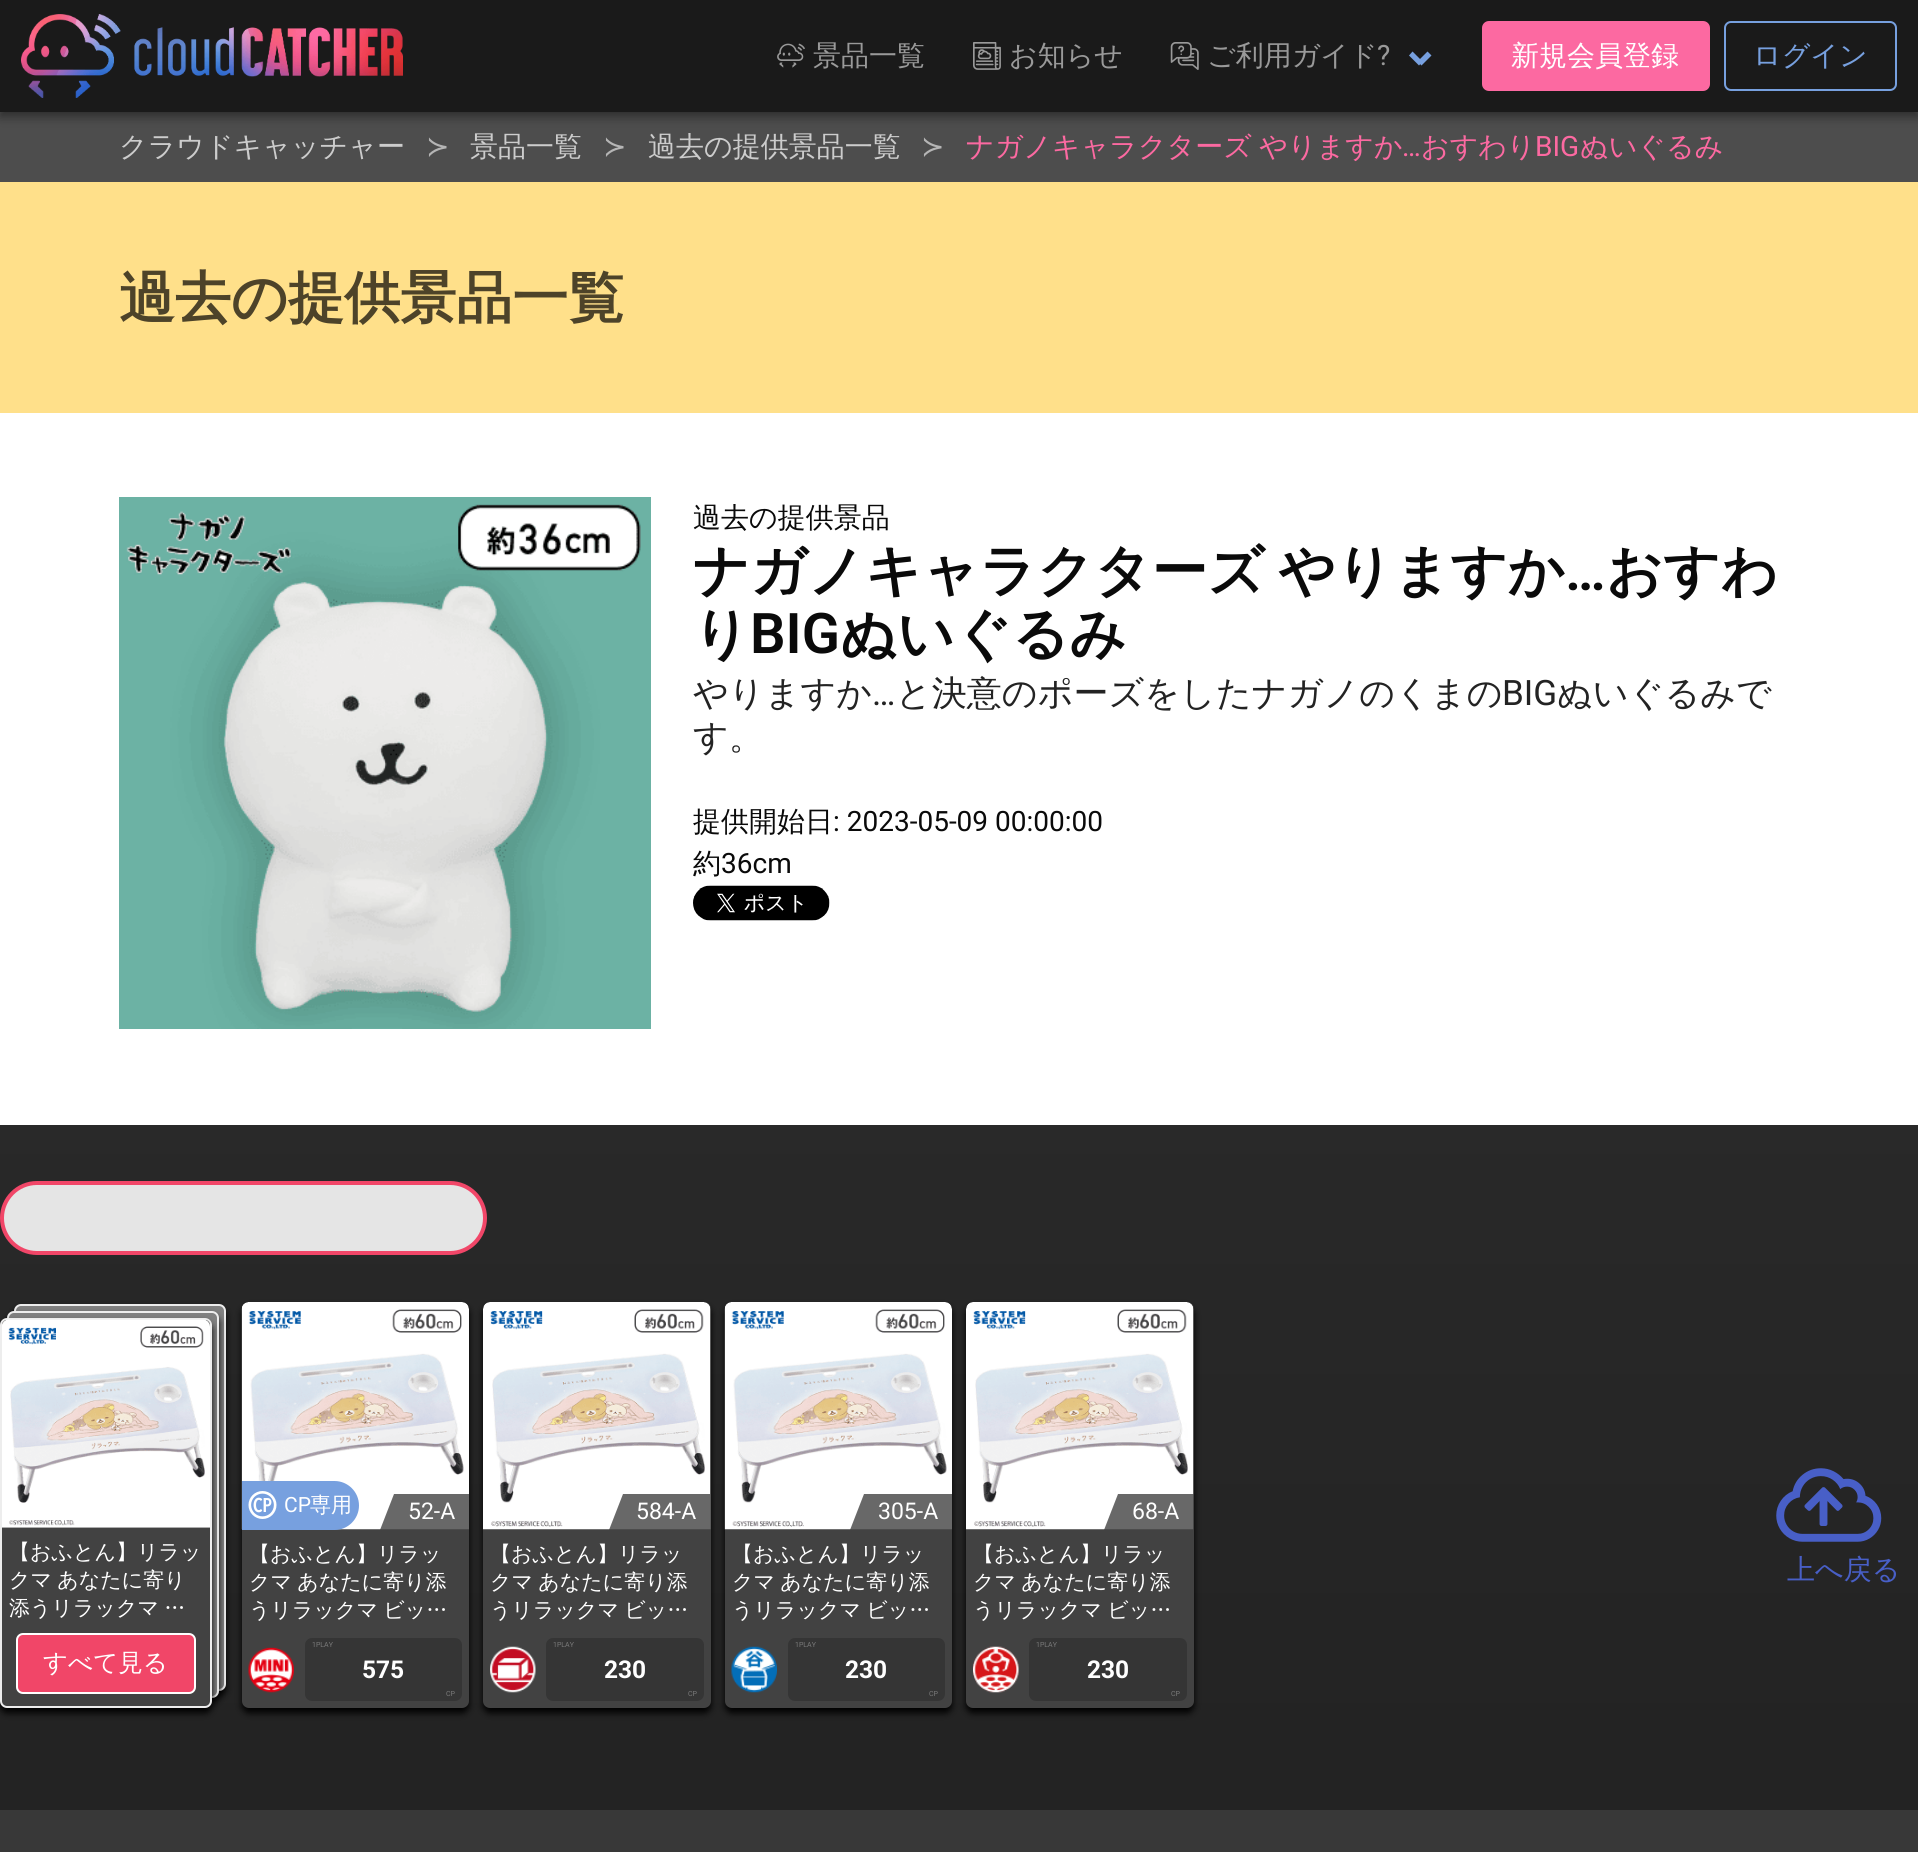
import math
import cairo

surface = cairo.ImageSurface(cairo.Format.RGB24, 1918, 1852)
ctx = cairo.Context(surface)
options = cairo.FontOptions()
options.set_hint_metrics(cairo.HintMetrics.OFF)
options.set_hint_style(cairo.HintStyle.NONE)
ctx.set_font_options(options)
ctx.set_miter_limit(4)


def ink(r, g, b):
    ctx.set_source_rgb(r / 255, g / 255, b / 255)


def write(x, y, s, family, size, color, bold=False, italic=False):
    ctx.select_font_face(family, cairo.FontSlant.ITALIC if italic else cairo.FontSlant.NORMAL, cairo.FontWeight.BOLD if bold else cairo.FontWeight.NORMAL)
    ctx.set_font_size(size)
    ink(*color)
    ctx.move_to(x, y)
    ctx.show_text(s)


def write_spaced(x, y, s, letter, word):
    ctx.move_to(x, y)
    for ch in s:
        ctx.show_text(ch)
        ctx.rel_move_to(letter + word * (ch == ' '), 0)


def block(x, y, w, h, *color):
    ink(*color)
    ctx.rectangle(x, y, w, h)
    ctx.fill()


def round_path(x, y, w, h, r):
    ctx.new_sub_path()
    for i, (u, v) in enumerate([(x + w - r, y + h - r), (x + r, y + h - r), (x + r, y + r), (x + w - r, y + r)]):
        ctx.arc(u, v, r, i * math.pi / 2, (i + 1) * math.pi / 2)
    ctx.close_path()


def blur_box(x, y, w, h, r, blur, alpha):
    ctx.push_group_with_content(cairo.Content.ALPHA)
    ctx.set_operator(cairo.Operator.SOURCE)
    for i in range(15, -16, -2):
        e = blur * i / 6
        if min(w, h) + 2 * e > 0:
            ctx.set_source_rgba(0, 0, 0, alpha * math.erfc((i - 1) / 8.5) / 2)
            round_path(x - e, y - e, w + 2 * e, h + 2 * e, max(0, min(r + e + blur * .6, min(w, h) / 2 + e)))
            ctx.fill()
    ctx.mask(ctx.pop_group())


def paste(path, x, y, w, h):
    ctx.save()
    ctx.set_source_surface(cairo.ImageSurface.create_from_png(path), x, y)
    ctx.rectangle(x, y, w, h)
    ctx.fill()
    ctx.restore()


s1 = dict(family="WenQuanYi Zen Hei Medium", size=28, color=(153, 153, 153))
s2 = dict(family="Roboto", size=28, color=(153, 153, 153))
s3 = dict(family="WenQuanYi Zen Hei Medium", size=28, color=(255, 255, 255))
s4 = dict(family="WenQuanYi Zen Hei Medium", size=28, color=(119, 160, 223))
s5 = dict(family="WenQuanYi Zen Hei Medium", size=28, color=(204, 204, 204))
s6 = dict(family="DejaVu Sans", size=28, color=(181, 181, 181))
s7 = dict(family="Roboto", size=28, color=(252, 105, 161))
s8 = dict(family="WenQuanYi Zen Hei Medium", size=28, color=(252, 105, 161))
s9 = dict(family="WenQuanYi Zen Hei", size=56, color=(77, 67, 41), bold=True)
s10 = dict(family="WenQuanYi Zen Hei Medium", size=28, color=(10, 10, 10))
s11 = dict(family="Roboto SemiBold", size=56, color=(10, 10, 10))
s12 = dict(family="WenQuanYi Zen Hei", size=56, color=(10, 10, 10), bold=True)
s13 = dict(family="WenQuanYi Zen Hei Medium", size=35, color=(35, 35, 35))
s14 = dict(family="Roboto", size=35, color=(35, 35, 35))
s15 = dict(family="Roboto", size=28, color=(10, 10, 10))
s16 = dict(family="WenQuanYi Zen Hei Medium", size=21, color=(255, 255, 255))
s17 = dict(family="WenQuanYi Zen Hei Medium", size=24.5, color=(255, 255, 255))
s18 = dict(family="Roboto", size=21, color=(255, 255, 255))
s19 = dict(family="Roboto", size=23, color=(255, 255, 255))
s20 = dict(family="Roboto", size=7, color=(122, 122, 122))
s21 = dict(family="Roboto", size=24.5, color=(255, 255, 255), bold=True)
s22 = dict(family="WenQuanYi Zen Hei Medium", size=28, color=(72, 95, 199))

ink(255, 255, 255)
ctx.paint()
gradient = cairo.LinearGradient(959, 0, 959, 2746)
gradient.add_color_stop_rgba(0, 0.2, 0.2, 0.2, 1)
gradient.add_color_stop_rgba(1, 0.102, 0.102, 0.102, 1)
ctx.set_source(gradient)
ctx.rectangle(0, 1125, 1918, 685)
ctx.fill()
block(0, 112, 1918, 70, 77, 77, 77)
ink(0, 0, 0)
blur_box(0, 5, 1918, 112, 0, 5, 0.4)
block(0, 0, 1918, 112, 26, 26, 26)
paste("pic1.png", 21, 14, 382, 84)
paste("pic2.png", 777, 43, 28, 25)
write(813, 65, "景品一覧", **s1)
paste("pic3.png", 973, 42, 28, 28)
write(1009, 65, "お知らせ", **s1)
paste("pic4.png", 1170, 42, 29, 28)
write(1207, 65, "ご利用ガイド", **s1)
write(1377, 65, "?", **s2)
ink(119, 160, 223)
ctx.new_path()
ctx.move_to(1417.5, 61.5)
ctx.line_to(1427.5, 51.5)
ctx.line_to(1431.5, 55.5)
ctx.line_to(1421.5, 65.5)
ctx.close_path()
ctx.fill()
ctx.new_path()
ctx.move_to(1409, 55.5)
ctx.line_to(1412.5, 51.5)
ctx.line_to(1422.5, 61.5)
ctx.line_to(1419, 65.5)
ctx.close_path()
ctx.fill()
ink(252, 105, 161)
round_path(1482, 21, 228, 70, 7)
ctx.fill()
write(1511, 65, "新規会員登録", **s3)
round_path(1725, 22, 171, 68, 6)
ink(119, 160, 223)
ctx.stroke()
write(1753, 65, "ログイン", **s4)
write(119, 156, "クラウドキャッチャー", **s5)
write(426, 156, "≻", **s6)
write(470, 156, "景品一覧", **s5)
write(603, 156, "≻", **s6)
write(648, 156, "過去の提供景品一覧", **s5)
write(921, 156, "≻", **s6)
ctx.select_font_face("WenQuanYi Zen Hei Medium")
ink(252, 105, 161)
write_spaced(966, 156, "ナガノキャラクターズ やりますか", 0, -1)
write(1402, 156, "…", **s7)
write(1421, 156, "おすわり", **s8)
write(1535, 156, "BIG", **s7)
write(1580, 156, "ぬいぐるみ", **s8)
block(0, 182, 1918, 231, 255, 224, 138)
write(119, 317, "過去の提供景品一覧", **s9)
paste("pic5.png", 119, 497, 532, 532)
write(693, 527, "過去の提供景品", **s10)
ctx.select_font_face("WenQuanYi Zen Hei", cairo.FontSlant.NORMAL, cairo.FontWeight.BOLD)
ctx.set_font_size(56)
write_spaced(693, 590, "ナガノキャラクターズ やりますか", 0, -3)
write(1565, 590, "…", **s11)
write(1606, 590, "おすわ", **s12)
write(693, 653, "り", **s12)
write(750, 653, "BIG", **s11)
write(840, 653, "ぬいぐるみ", **s12)
write(693, 705, "やりますか", **s13)
write(872, 705, "…", **s14)
write(896, 705, "と決意のポーズをしたナガノのくまの", **s13)
write(1502, 705, "BIG", **s14)
write(1557, 705, "ぬいぐるみで", **s13)
write(693, 749, "す。", **s13)
write(693, 831, "提供開始日", **s10)
write(833, 831, ": 2023-05-09 00:00:00", **s15)
write(693, 873, "約", **s10)
write(721, 873, "36cm", **s15)
paste("pic6.png", 693, 885, 137, 36)
ink(229, 229, 229)
round_path(2, 1183, 483, 70, 35)
ctx.fill_preserve()
ink(241, 70, 104)
ctx.set_line_width(4)
ctx.stroke()
ink(0, 0, 0)
blur_box(14, 1309, 212, 387, 7, 3.5, 1)
ink(129, 129, 129)
round_path(15, 1305, 210, 385, 6)
ctx.fill_preserve()
ink(237, 237, 237)
ctx.set_line_width(2)
ctx.stroke()
ink(0, 0, 0)
blur_box(7, 1316, 212, 387, 7, 3.5, 1)
ink(129, 129, 129)
round_path(8, 1312, 210, 385, 6)
ctx.fill_preserve()
ink(237, 237, 237)
ctx.stroke()
ink(0, 0, 0)
blur_box(0, 1323, 212, 390, 7, 3.5, 1)
ink(66, 66, 66)
round_path(1, 1319, 210, 388, 6)
ctx.fill_preserve()
ink(237, 237, 237)
ctx.stroke()
paste("pic7.png", 2, 1319, 208, 209)
write(9, 1559, "【おふとん】リラッ", **s16)
write_spaced(9, 1587, "クマ あなたに寄り", 0, -1)
write_spaced(9, 1615, "添うリラックマ …", 0, -1)
ink(241, 70, 104)
round_path(17, 1634, 178, 59, 6)
ctx.fill_preserve()
ink(255, 255, 255)
ctx.stroke()
write(43, 1671, "すべて見る", **s17)
ink(0, 0, 0)
blur_box(242, 1307, 227, 406, 7, 3.5, 1)
ink(66, 66, 66)
round_path(242, 1302, 227, 406, 7)
ctx.fill()
paste("pic8.png", 241, 1302, 228, 228)
ink(119, 160, 223)
ctx.new_path()
ctx.move_to(242, 1481)
ctx.line_to(334.5, 1481)
ctx.curve_to(348, 1481, 359, 1492, 359, 1505.5)
ctx.curve_to(359, 1519, 348, 1530, 334.5, 1530)
ctx.line_to(242, 1530)
ctx.close_path()
ctx.fill()
paste("pic9.png", 248, 1491, 29, 28)
write(284, 1512, "CP", **s18)
write(310, 1512, "専用", **s16)
paste("pic10.png", 253, 1497, 10, 16)
paste("pic11.png", 263, 1498, 9, 14)
ctx.set_source_rgba(0.259, 0.259, 0.259, 0.8)
ctx.new_path()
ctx.move_to(469, 1530)
ctx.line_to(380, 1530)
ctx.line_to(394, 1494)
ctx.line_to(469, 1494)
ctx.close_path()
ctx.fill()
write(408, 1519, "52-A", **s19)
write(249, 1561, "【おふとん】リラッ", **s16)
write_spaced(249, 1589, "クマ あなたに寄り添", 0, -1)
write_spaced(249, 1617, "うリラックマ ビッ…", 0, -1)
paste("pic12.png", 248, 1647, 46, 46)
ink(53, 53, 53)
round_path(305, 1638, 157, 63, 7)
ctx.fill()
write(312, 1647, "1PLAY", **s20)
write(362, 1678, "575", **s21)
write(446, 1696, "CP", **s20)
ink(0, 0, 0)
blur_box(483, 1307, 228, 406, 7, 3.5, 1)
ink(66, 66, 66)
round_path(483, 1302, 228, 406, 7)
ctx.fill()
paste("pic13.png", 483, 1302, 228, 228)
ctx.set_source_rgba(0.259, 0.259, 0.259, 0.8)
ctx.new_path()
ctx.move_to(710, 1530)
ctx.line_to(609, 1530)
ctx.line_to(623, 1494)
ctx.line_to(710, 1494)
ctx.close_path()
ctx.fill()
write(636, 1519, "584-A", **s19)
write(490, 1561, "【おふとん】リラッ", **s16)
write_spaced(490, 1589, "クマ あなたに寄り添", 0, -1)
write_spaced(490, 1617, "うリラックマ ビッ…", 0, -1)
paste("pic14.png", 490, 1646, 46, 47)
ink(53, 53, 53)
round_path(546, 1638, 158, 63, 7)
ctx.fill()
write(553, 1647, "1PLAY", **s20)
write(604, 1678, "230", **s21)
write(688, 1696, "CP", **s20)
ink(0, 0, 0)
blur_box(725, 1307, 227, 406, 7, 3.5, 1)
ink(66, 66, 66)
round_path(725, 1302, 227, 406, 7)
ctx.fill()
paste("pic8.png", 724, 1302, 228, 228)
ctx.set_source_rgba(0.259, 0.259, 0.259, 0.8)
ctx.new_path()
ctx.move_to(952, 1530)
ctx.line_to(850, 1530)
ctx.line_to(864, 1494)
ctx.line_to(952, 1494)
ctx.close_path()
ctx.fill()
write(878, 1519, "305-A", **s19)
write(732, 1561, "【おふとん】リラッ", **s16)
write_spaced(732, 1589, "クマ あなたに寄り添", 0, -1)
write_spaced(732, 1617, "うリラックマ ビッ…", 0, -1)
paste("pic15.png", 731, 1646, 46, 47)
ink(53, 53, 53)
round_path(788, 1638, 157, 63, 7)
ctx.fill()
write(795, 1647, "1PLAY", **s20)
write(845, 1678, "230", **s21)
write(929, 1696, "CP", **s20)
ink(0, 0, 0)
blur_box(966, 1307, 228, 406, 7, 3.5, 1)
ink(66, 66, 66)
round_path(966, 1302, 228, 406, 7)
ctx.fill()
paste("pic16.png", 966, 1302, 228, 228)
ctx.set_source_rgba(0.259, 0.259, 0.259, 0.8)
ctx.new_path()
ctx.move_to(1194, 1530)
ctx.line_to(1104, 1530)
ctx.line_to(1118, 1494)
ctx.line_to(1194, 1494)
ctx.close_path()
ctx.fill()
write(1132, 1519, "68-A", **s19)
write(973, 1561, "【おふとん】リラッ", **s16)
write_spaced(973, 1589, "クマ あなたに寄り添", 0, -1)
write_spaced(973, 1617, "うリラックマ ビッ…", 0, -1)
paste("pic17.png", 973, 1646, 46, 47)
ink(53, 53, 53)
round_path(1029, 1638, 158, 63, 7)
ctx.fill()
write(1036, 1647, "1PLAY", **s20)
write(1087, 1678, "230", **s21)
write(1171, 1696, "CP", **s20)
paste("pic18.png", 1776, 1468, 106, 74)
write(1787, 1579, "上へ戻る", **s22)
block(0, 1810, 1918, 42, 56, 56, 56)
surface.write_to_png("screenshot.png")
